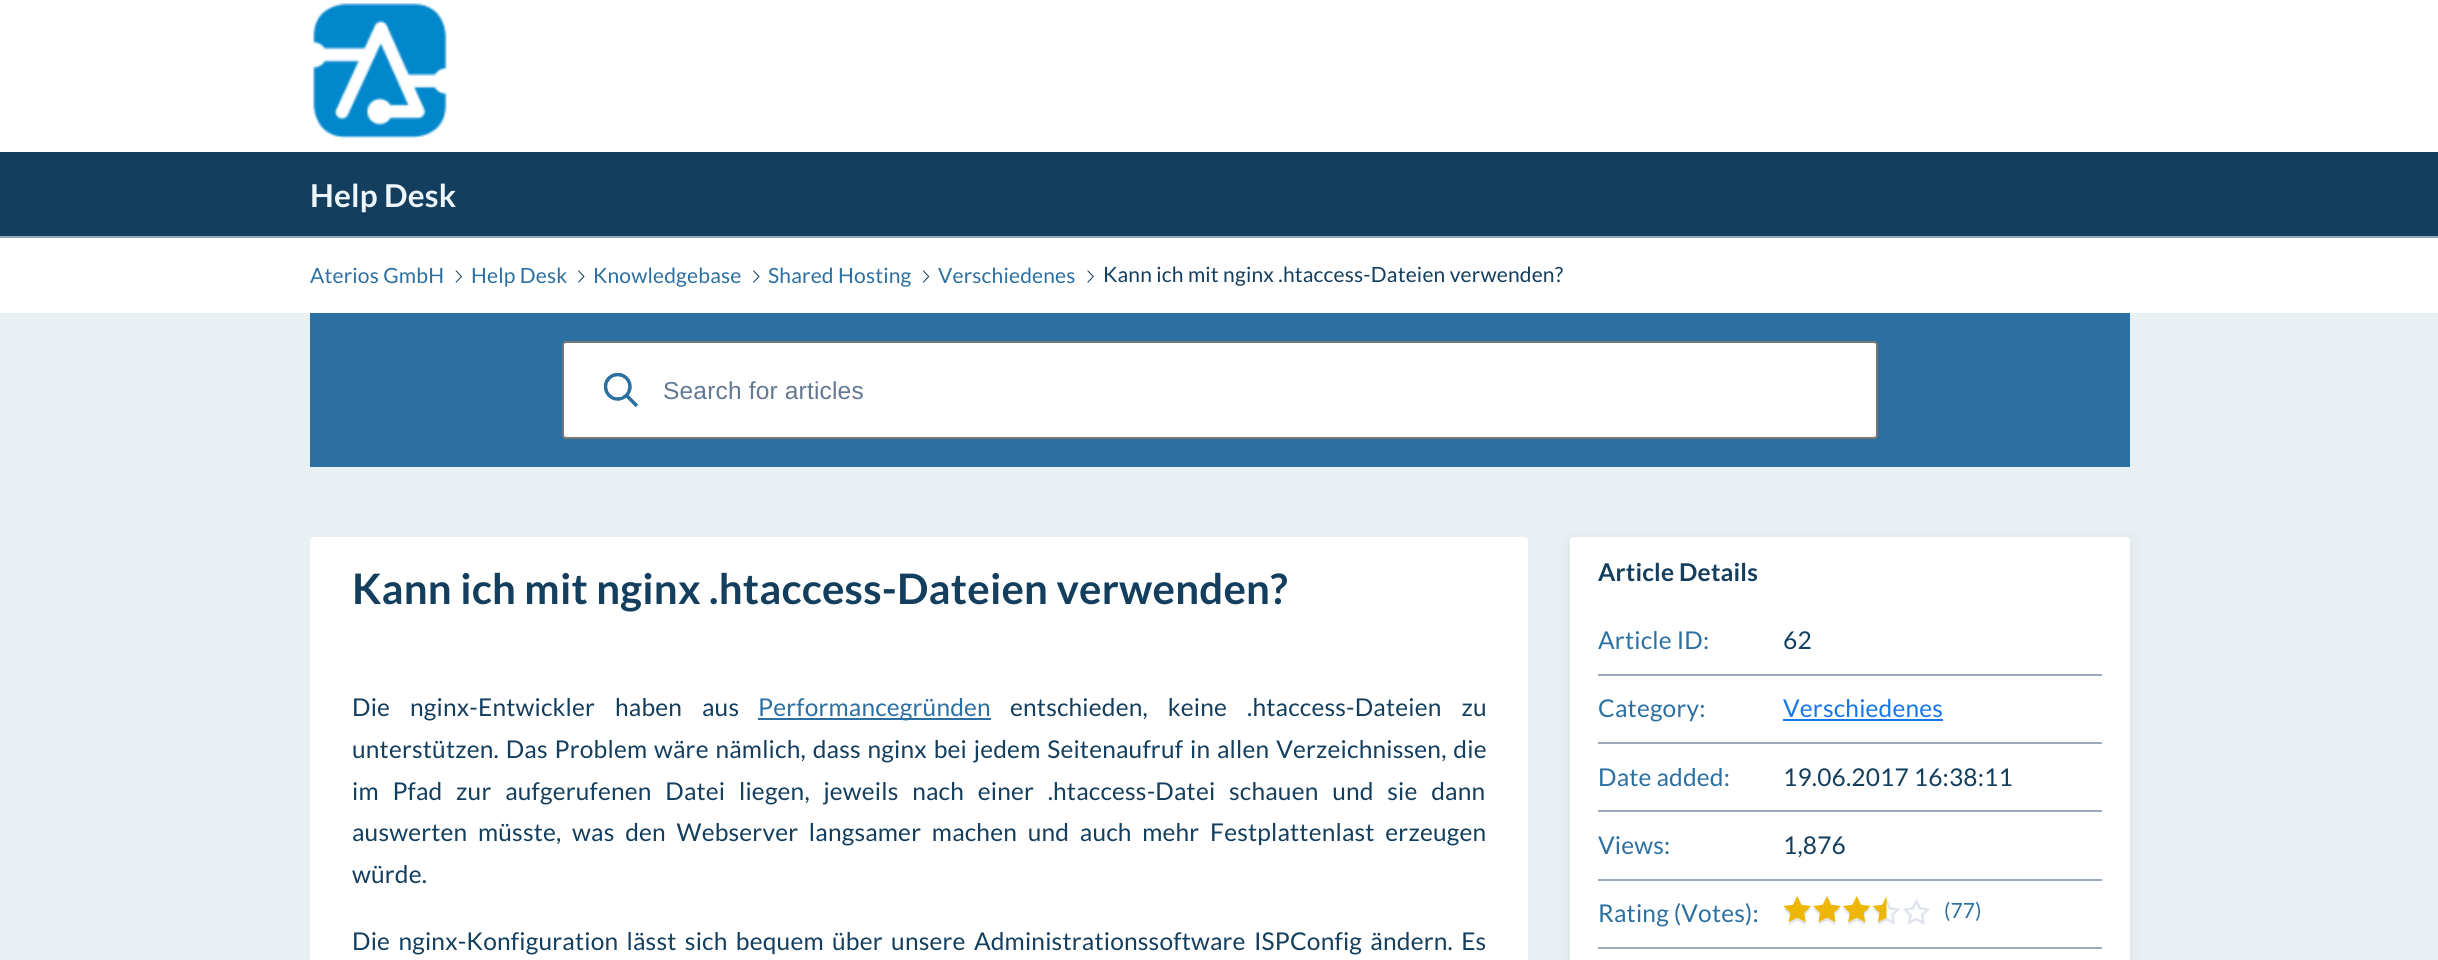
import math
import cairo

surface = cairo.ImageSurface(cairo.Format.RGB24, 2438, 960)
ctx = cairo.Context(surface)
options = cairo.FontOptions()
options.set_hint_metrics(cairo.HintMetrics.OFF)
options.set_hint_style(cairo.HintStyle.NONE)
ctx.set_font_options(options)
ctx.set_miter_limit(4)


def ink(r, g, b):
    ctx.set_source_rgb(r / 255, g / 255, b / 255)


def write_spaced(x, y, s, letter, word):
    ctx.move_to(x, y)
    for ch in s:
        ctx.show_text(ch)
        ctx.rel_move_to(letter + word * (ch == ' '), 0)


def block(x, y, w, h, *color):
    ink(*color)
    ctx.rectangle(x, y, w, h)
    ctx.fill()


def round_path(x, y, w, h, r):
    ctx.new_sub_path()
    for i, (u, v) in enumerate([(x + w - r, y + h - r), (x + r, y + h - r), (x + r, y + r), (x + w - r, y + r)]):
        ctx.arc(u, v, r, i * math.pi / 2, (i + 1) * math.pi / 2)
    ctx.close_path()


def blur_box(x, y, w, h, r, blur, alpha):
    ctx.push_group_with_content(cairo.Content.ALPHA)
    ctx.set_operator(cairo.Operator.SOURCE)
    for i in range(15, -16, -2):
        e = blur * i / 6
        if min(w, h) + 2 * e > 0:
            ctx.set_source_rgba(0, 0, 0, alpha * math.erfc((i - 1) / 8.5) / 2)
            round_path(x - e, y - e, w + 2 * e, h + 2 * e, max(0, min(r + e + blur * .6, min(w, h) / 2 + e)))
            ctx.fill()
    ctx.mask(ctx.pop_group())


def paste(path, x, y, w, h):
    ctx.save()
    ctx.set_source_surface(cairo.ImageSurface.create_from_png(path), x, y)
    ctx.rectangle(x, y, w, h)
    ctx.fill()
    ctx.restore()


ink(255, 255, 255)
ctx.paint()
paste("pic1.png", 312, 3, 135, 136)
block(0, 152, 2438, 84, 19, 62, 94)
block(0, 236, 2438, 2, 146, 168, 182)
ctx.select_font_face("Lato", cairo.FontSlant.NORMAL, cairo.FontWeight.BOLD)
ctx.set_font_size(31.5)
ink(237, 246, 251)
write_spaced(310, 207, "Help Desk", 0.18, 0)
ctx.select_font_face("Lato")
ctx.set_font_size(21)
ink(44, 112, 162)
write_spaced(310, 283, "Aterios GmbH", 0.18, 0)
paste("pic2.png", 455, 270, 7, 13)
write_spaced(471, 283, "Help Desk", 0.18, 0)
paste("pic3.png", 578, 270, 7, 13)
write_spaced(593, 283, "Knowledgebase", 0.18, 0)
paste("pic3.png", 753, 270, 7, 13)
write_spaced(768, 283, "Shared Hosting", 0.18, 0)
paste("pic4.png", 922, 270, 8, 13)
write_spaced(938, 283, "Verschiedenes", 0.18, 0)
paste("pic5.png", 1087, 270, 7, 13)
ink(19, 62, 94)
write_spaced(1103, 282, "Kann ich mit nginx .htaccess-Dateien verwenden?", 0.18, 0)
block(0, 313, 2438, 647, 233, 240, 243)
block(310, 313, 1820, 154, 44, 112, 162)
ink(255, 255, 255)
round_path(563, 342, 1314, 96, 3)
ctx.fill_preserve()
ink(118, 118, 118)
ctx.stroke()
paste("pic6.png", 603, 372, 36, 36)
ctx.select_font_face("Liberation Sans")
ctx.set_font_size(24.5)
ink(99, 120, 146)
write_spaced(663, 399, "Search for articles", 0.18, 0)
ink(255, 255, 255)
round_path(310, 537, 1218, 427, 4)
ctx.fill()
ctx.select_font_face("Lato", cairo.FontSlant.NORMAL, cairo.FontWeight.BOLD)
ctx.set_font_size(42)
ink(19, 62, 94)
write_spaced(352, 604, "Kann ich mit nginx .htaccess-Dateien verwenden?", 0.2, 0)
ctx.select_font_face("Lato")
ctx.set_font_size(24.5)
write_spaced(352, 716, "Die nginx-Entwickler haben aus", 0.18, 15)
block(758, 718, 233, 2, 44, 112, 162)
write_spaced(758, 716, "Performancegründen", 0.18, 0)
ink(19, 62, 94)
write_spaced(1010, 716, "entschieden, keine .htaccess-Dateien zu", 0.18, 15)
write_spaced(352, 758, "unterstützen. Das Problem wäre nämlich, dass nginx bei jedem Seitenaufruf in allen Verzeichnissen, die", 0.18, 1.9)
write_spaced(352, 800, "im Pfad zur aufgerufenen Datei liegen, jeweils nach einer .htaccess-Datei schauen und sie dann", 0.18, 8.75)
write_spaced(352, 841, "auswerten müsste, was den Webserver langsamer machen und auch mehr Festplattenlast erzeugen", 0.18, 5.75)
write_spaced(352, 883, "würde.", 0.18, 0)
write_spaced(352, 950, "Die nginx-Konfiguration lässt sich bequem über unsere Administrationssoftware ISPConfig ändern. Es", 0.18, 3.4)
ink(38, 40, 42)
blur_box(1570, 541, 560, 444, 4, 7, 0.1)
ink(255, 255, 255)
round_path(1570, 537, 560, 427, 4)
ctx.fill()
ctx.select_font_face("Lato", cairo.FontSlant.NORMAL, cairo.FontWeight.BOLD)
ink(19, 62, 94)
write_spaced(1598, 581, "Article Details", 0.18, 0)
block(1598, 674, 504, 2, 156, 170, 187)
ctx.select_font_face("Lato")
ink(44, 112, 162)
write_spaced(1598, 649, "Article ID:", 0.18, 0)
ink(19, 62, 94)
write_spaced(1783, 649, "62", 0.18, 0)
block(1598, 742, 504, 2, 156, 170, 187)
ink(44, 112, 162)
write_spaced(1598, 717, "Category:", 0.18, 0)
ink(23, 118, 234)
write_spaced(1783, 717, "Verschiedenes", 0.18, 0)
block(1783, 719, 160, 2, 23, 118, 234)
block(1598, 810, 504, 2, 156, 170, 187)
ink(44, 112, 162)
write_spaced(1598, 786, "Date added:", 0.18, 0)
ink(19, 62, 94)
write_spaced(1783, 786, "19.06.2017 16:38:11", 0.18, 0)
block(1598, 879, 504, 2, 156, 170, 187)
ink(44, 112, 162)
write_spaced(1598, 854, "Views:", 0.18, 0)
ink(19, 62, 94)
write_spaced(1783, 854, "1,876", 0.18, 0)
block(1598, 947, 504, 2, 156, 170, 187)
ink(44, 112, 162)
write_spaced(1598, 922, "Rating (Votes):", 0.18, 0)
paste("pic8.png", 1784, 899, 146, 26)
paste("pic7.png", 1783, 896, 104, 26)
ctx.set_font_size(21)
write_spaced(1944, 918, "(77)", 0.18, 0)
surface.write_to_png("screenshot.png")
